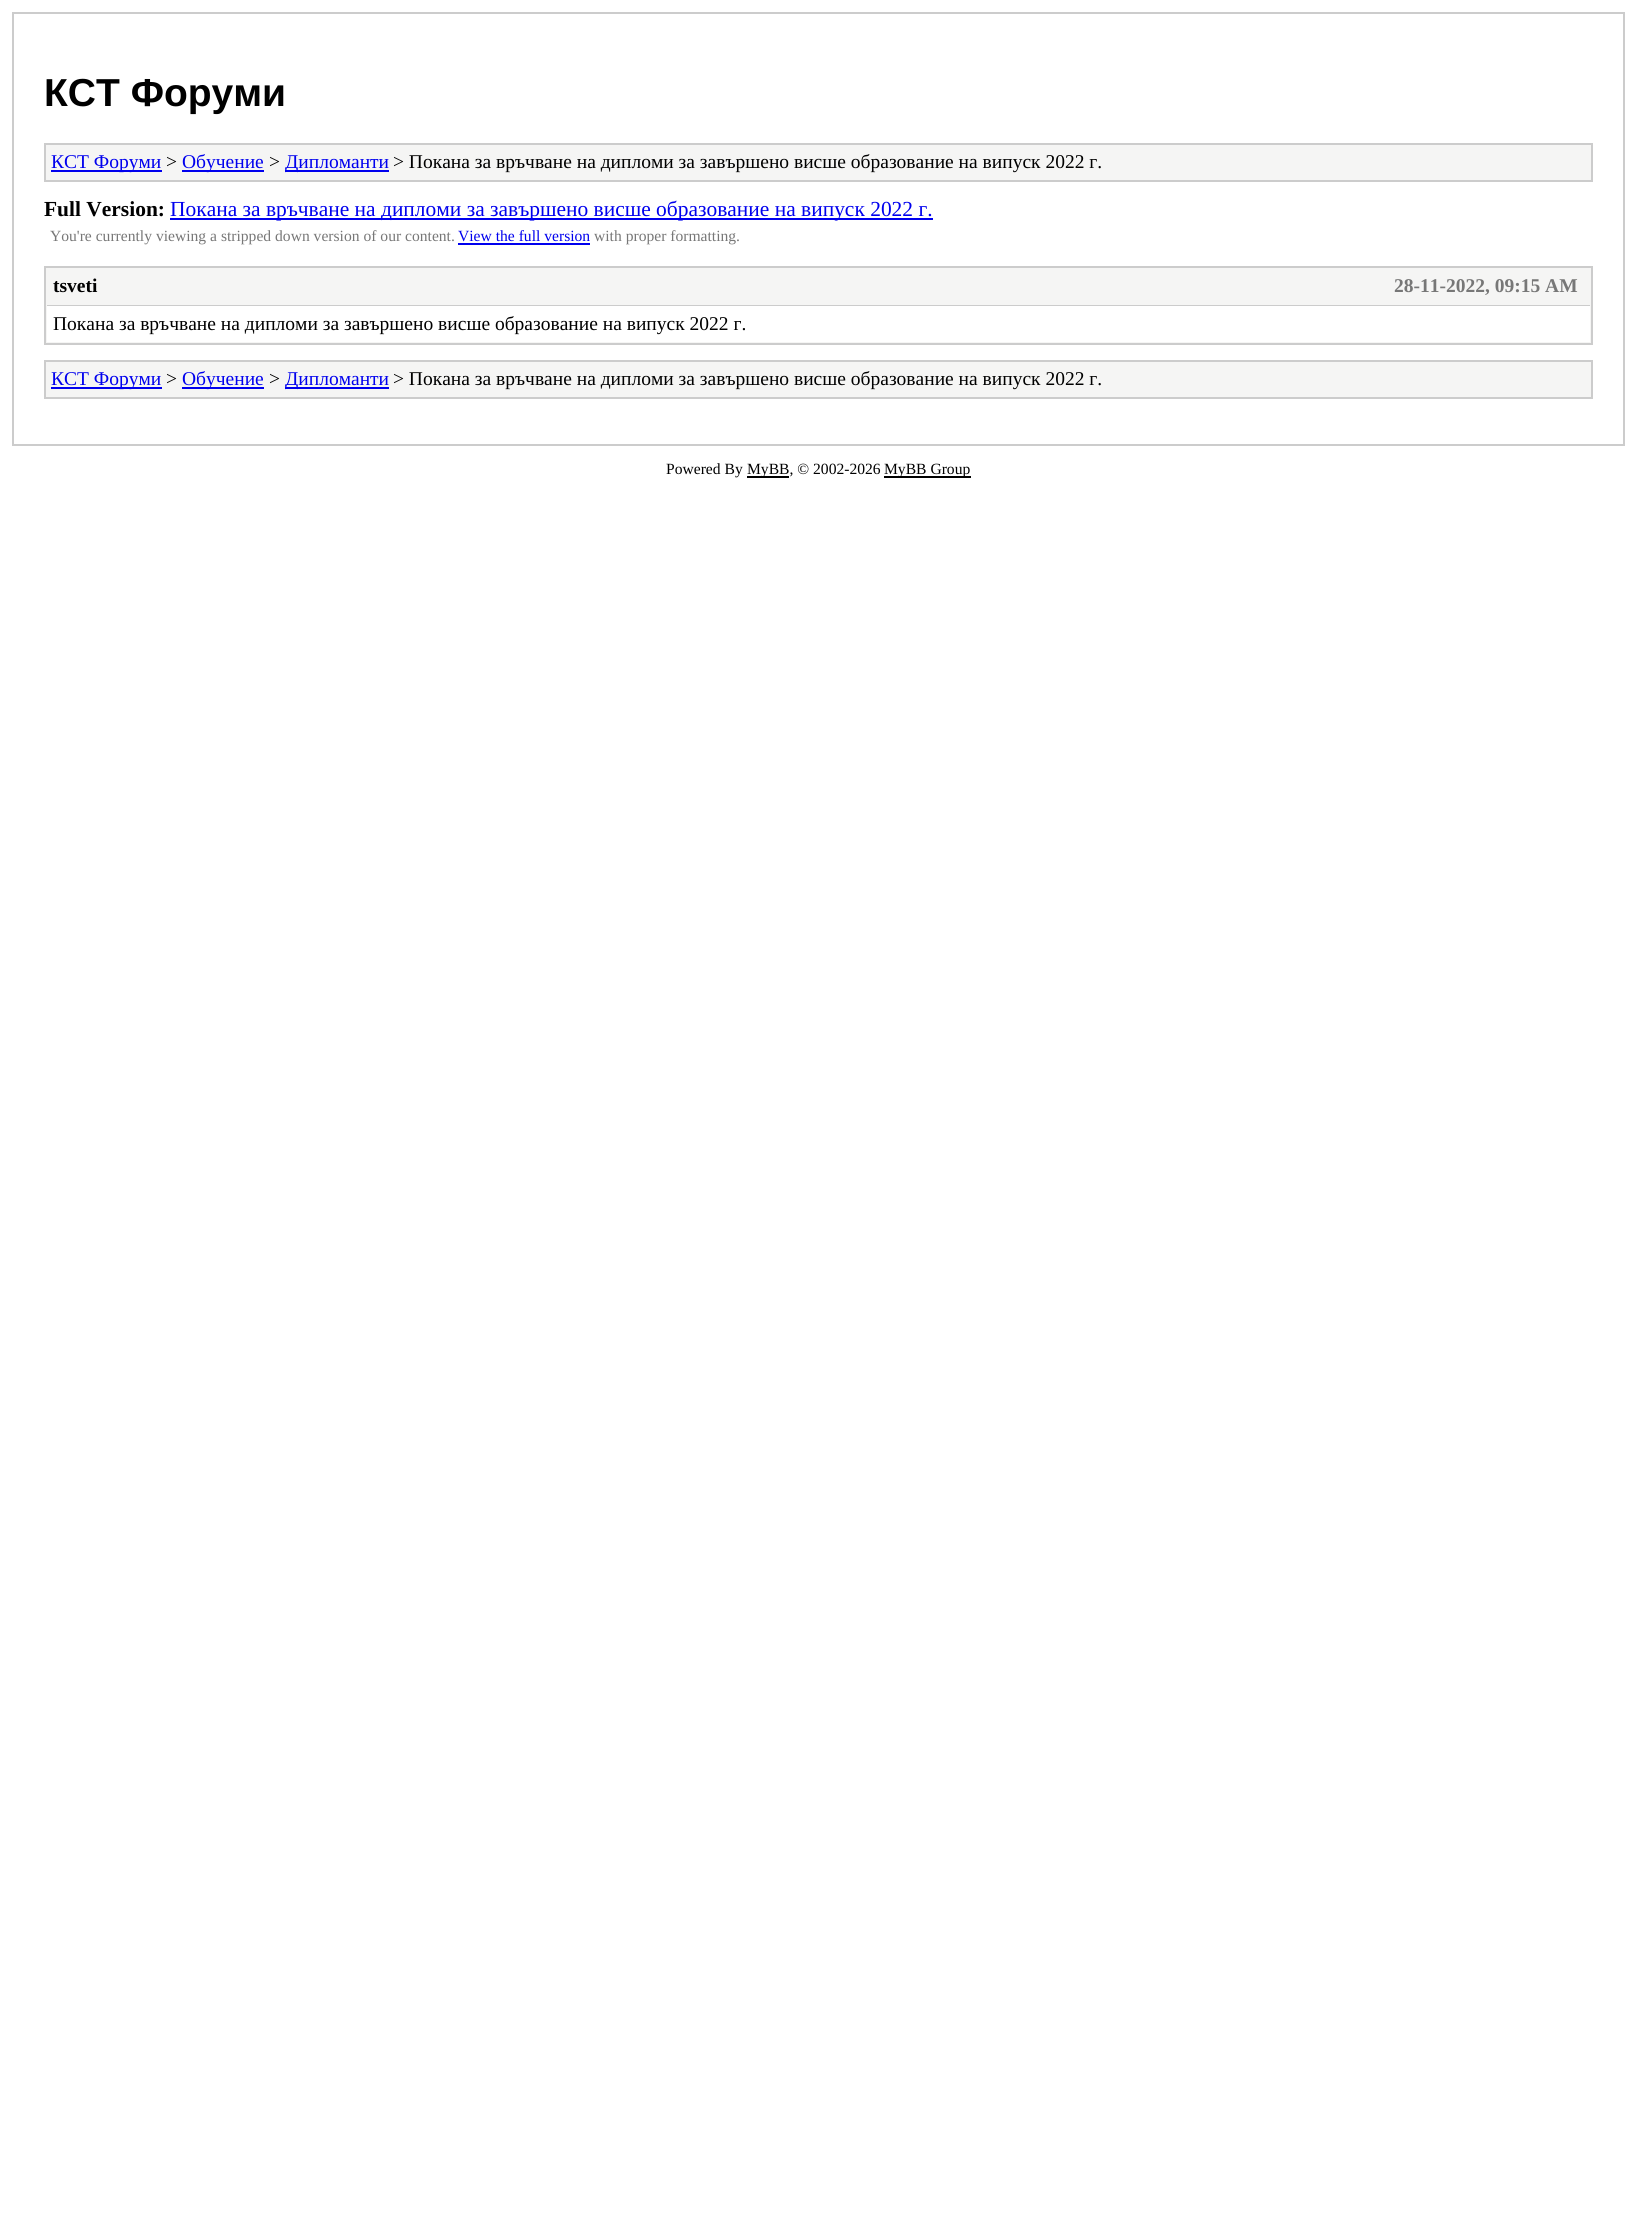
import math
import cairo

surface = cairo.ImageSurface(cairo.Format.RGB24, 1636, 2223)
ctx = cairo.Context(surface)
options = cairo.FontOptions()
options.set_hint_metrics(cairo.HintMetrics.OFF)
options.set_hint_style(cairo.HintStyle.NONE)
ctx.set_font_options(options)
ctx.set_miter_limit(4)


def ink(r, g, b):
    ctx.set_source_rgb(r / 255, g / 255, b / 255)


def write(x, y, s, family, size, color, bold=False, italic=False):
    ctx.select_font_face(family, cairo.FontSlant.ITALIC if italic else cairo.FontSlant.NORMAL, cairo.FontWeight.BOLD if bold else cairo.FontWeight.NORMAL)
    ctx.set_font_size(size)
    ink(*color)
    ctx.move_to(x, y)
    ctx.show_text(s)


def block(x, y, w, h, *color):
    ink(*color)
    ctx.rectangle(x, y, w, h)
    ctx.fill()


s1 = dict(family="Liberation Sans", size=39, color=(0, 0, 0), bold=True)
s2 = dict(family="Liberation Serif", size=19.5, color=(0, 0, 238))
s3 = dict(family="Liberation Serif", size=19.5, color=(0, 0, 0))
s4 = dict(family="Liberation Serif", size=21.45, color=(0, 0, 0), bold=True)
s5 = dict(family="Liberation Serif", size=21.45, color=(0, 0, 238))
s6 = dict(family="Liberation Serif", size=15.6, color=(119, 119, 119))
s7 = dict(family="Liberation Serif", size=15.6, color=(0, 0, 238))
s8 = dict(family="Liberation Serif", size=19.5, color=(0, 0, 0), bold=True)
s9 = dict(family="Liberation Serif", size=19.5, color=(119, 119, 119), bold=True)
s10 = dict(family="Liberation Serif", size=15.6, color=(0, 0, 0))

ink(255, 255, 255)
ctx.paint()
ctx.rectangle(13, 13, 1611, 432)
ink(204, 204, 204)
ctx.stroke()
write(44, 106, "КСТ Форуми", **s1)
ink(245, 245, 244)
ctx.rectangle(45, 144, 1547, 37)
ctx.fill_preserve()
ink(204, 204, 204)
ctx.stroke()
block(51, 170, 111, 2, 0, 0, 238)
write(51, 168, "КСТ Форуми", **s2)
write(166, 168, ">", **s3)
block(182, 170, 82, 2, 0, 0, 238)
write(182, 168, "Обучение", **s2)
write(269, 168, ">", **s3)
block(285, 170, 104, 2, 0, 0, 238)
write(285, 168, "Дипломанти", **s2)
write(393, 168, "> Покана за връчване на дипломи за завършено висше образование на випуск 2022 г.", **s3)
write(44, 216, "Full Version:", **s4)
block(170, 218, 763, 2, 0, 0, 238)
write(170, 216, "Покана за връчване на дипломи за завършено висше образование на випуск 2022 г.", **s5)
write(50, 241, "You're currently viewing a stripped down version of our content.", **s6)
write(458, 241, "View the full version", **s7)
block(458, 243, 132, 2, 0, 0, 238)
write(594, 241, "with proper formatting.", **s6)
ink(245, 245, 244)
ctx.rectangle(45, 267, 1547, 77)
ctx.fill_preserve()
ink(204, 204, 204)
ctx.stroke()
block(47, 305, 1543, 1, 204, 204, 204)
write(53, 292, "tsveti", **s8)
write(1394, 292, "28-11-2022, 09:15 AM", **s9)
block(47, 306, 1543, 36, 255, 255, 255)
write(53, 330, "Покана за връчване на дипломи за завършено висше образование на випуск 2022 г.", **s3)
ink(245, 245, 244)
ctx.rectangle(45, 361, 1547, 37)
ctx.fill_preserve()
ink(204, 204, 204)
ctx.stroke()
block(51, 387, 111, 2, 0, 0, 238)
write(51, 385, "КСТ Форуми", **s2)
write(166, 385, ">", **s3)
block(182, 387, 82, 2, 0, 0, 238)
write(182, 385, "Обучение", **s2)
write(269, 385, ">", **s3)
block(285, 387, 104, 2, 0, 0, 238)
write(285, 385, "Дипломанти", **s2)
write(393, 385, "> Покана за връчване на дипломи за завършено висше образование на випуск 2022 г.", **s3)
write(666, 474, "Powered By", **s10)
block(747, 476, 42, 2, 0, 0, 0)
write(747, 474, "MyBB, © 2002-2026", **s10)
block(884, 476, 87, 2, 0, 0, 0)
write(884, 474, "MyBB Group", **s10)
surface.write_to_png("screenshot.png")
